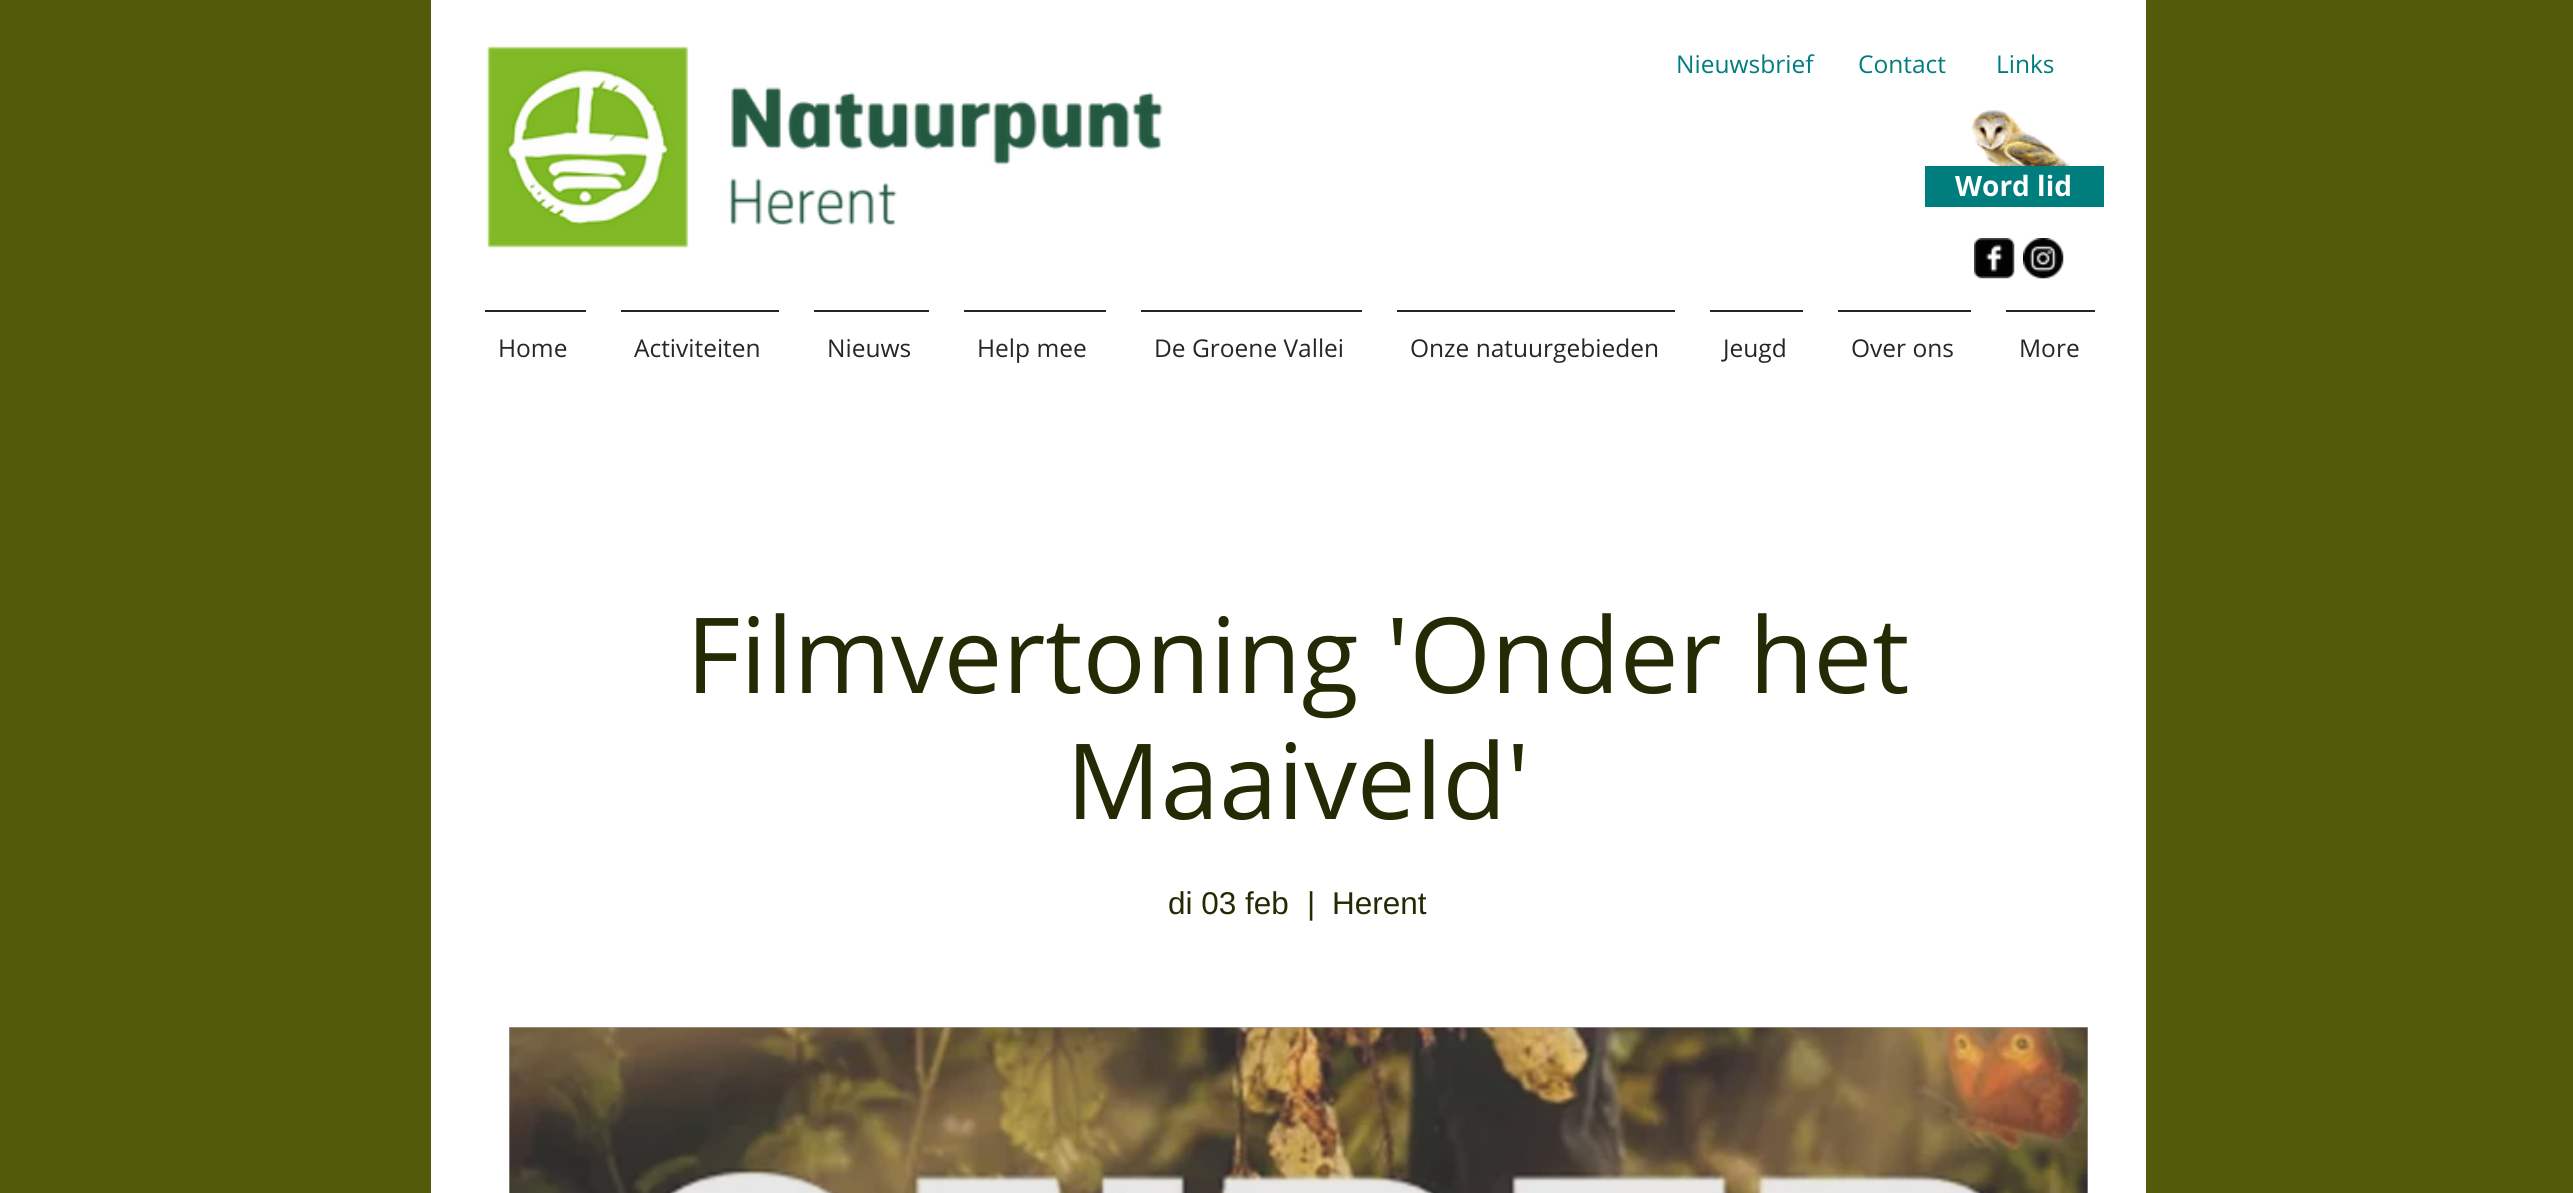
import math
import cairo

surface = cairo.ImageSurface(cairo.Format.RGB24, 2573, 1193)
ctx = cairo.Context(surface)
options = cairo.FontOptions()
options.set_hint_metrics(cairo.HintMetrics.OFF)
options.set_hint_style(cairo.HintStyle.NONE)
ctx.set_font_options(options)
ctx.set_miter_limit(4)


def ink(r, g, b):
    ctx.set_source_rgb(r / 255, g / 255, b / 255)


def write(x, y, s, family, size, color, bold=False, italic=False):
    ctx.select_font_face(family, cairo.FontSlant.ITALIC if italic else cairo.FontSlant.NORMAL, cairo.FontWeight.BOLD if bold else cairo.FontWeight.NORMAL)
    ctx.set_font_size(size)
    ink(*color)
    ctx.move_to(x, y)
    ctx.show_text(s)


def block(x, y, w, h, *color):
    ink(*color)
    ctx.rectangle(x, y, w, h)
    ctx.fill()


def paste(path, x, y, w, h):
    ctx.save()
    ctx.set_source_surface(cairo.ImageSurface.create_from_png(path), x, y)
    ctx.rectangle(x, y, w, h)
    ctx.fill()
    ctx.restore()


s1 = dict(family="Open Sans", size=24.5, color=(0, 125, 125))
s2 = dict(family="Open Sans", size=28, color=(255, 255, 255), bold=True)
s3 = dict(family="Open Sans", size=24.5, color=(40, 37, 39))
s4 = dict(family="Open Sans", size=105, color=(37, 42, 4))
s5 = dict(family="Liberation Sans", size=31.5, color=(37, 42, 4))

ink(83, 90, 10)
ctx.paint()
block(431, 0, 1715, 1193, 255, 255, 255)
paste("pic1.png", 486, 46, 677, 202)
write(1676, 73, "Nieuwsbrief", **s1)
write(1858, 73, "Contact", **s1)
write(1996, 73, "Links", **s1)
paste("pic2.png", 1971, 110, 102, 56)
block(1925, 166, 179, 41, 0, 125, 125)
write(1955, 196, "Word lid", **s2)
paste("pic3.png", 1974, 238, 41, 41)
paste("pic4.png", 2023, 238, 41, 41)
block(485, 310, 101, 2, 40, 37, 39)
write(498, 357, "Home", **s3)
block(621, 310, 158, 2, 40, 37, 39)
write(634, 357, "Activiteiten", **s3)
block(814, 310, 115, 2, 40, 37, 39)
write(827, 357, "Nieuws", **s3)
block(964, 310, 142, 2, 40, 37, 39)
write(977, 357, "Help mee", **s3)
block(1141, 310, 221, 2, 40, 37, 39)
write(1154, 357, "De Groene Vallei", **s3)
block(1397, 310, 278, 2, 40, 37, 39)
write(1410, 357, "Onze natuurgebieden", **s3)
block(1710, 310, 93, 2, 40, 37, 39)
write(1723, 357, "Jeugd", **s3)
block(1838, 310, 133, 2, 40, 37, 39)
write(1851, 357, "Over ons", **s3)
block(2006, 310, 89, 2, 40, 37, 39)
write(2019, 357, "More", **s3)
write(686, 693, "Filmvertoning 'Onder het", **s4)
write(1066, 819, "Maaiveld'", **s4)
write(1168, 914, "di 03 feb", **s5)
write(1307, 914, "|", **s5)
write(1332, 914, "Herent", **s5)
block(509, 1027, 1579, 166, 169, 165, 168)
paste("pic5.png", 509, 1027, 1579, 166)
surface.write_to_png("screenshot.png")
